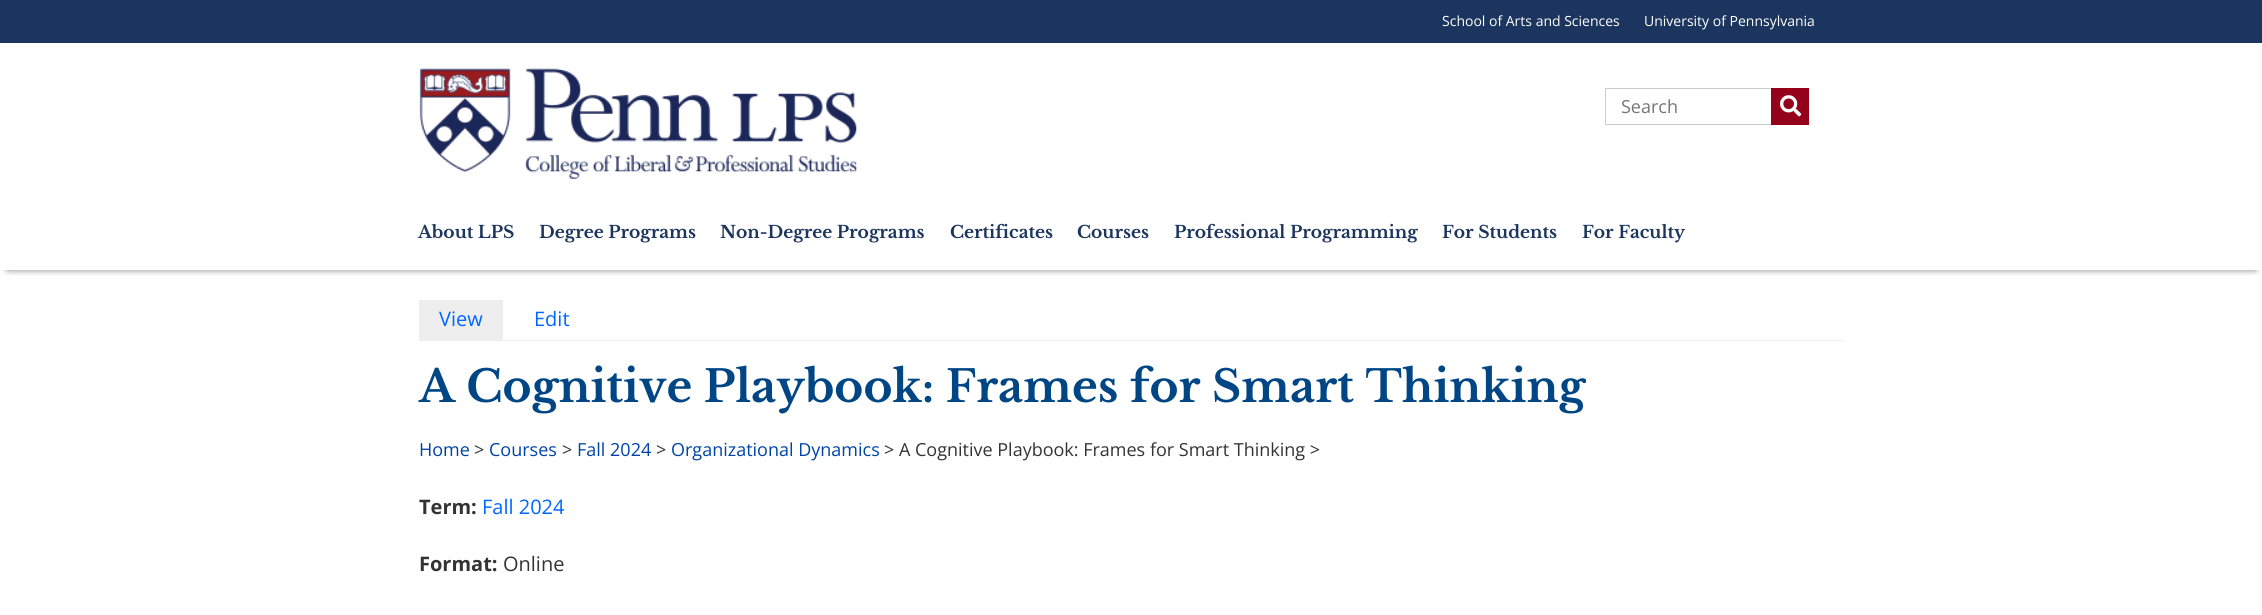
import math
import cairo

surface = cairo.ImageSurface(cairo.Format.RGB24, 2262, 615)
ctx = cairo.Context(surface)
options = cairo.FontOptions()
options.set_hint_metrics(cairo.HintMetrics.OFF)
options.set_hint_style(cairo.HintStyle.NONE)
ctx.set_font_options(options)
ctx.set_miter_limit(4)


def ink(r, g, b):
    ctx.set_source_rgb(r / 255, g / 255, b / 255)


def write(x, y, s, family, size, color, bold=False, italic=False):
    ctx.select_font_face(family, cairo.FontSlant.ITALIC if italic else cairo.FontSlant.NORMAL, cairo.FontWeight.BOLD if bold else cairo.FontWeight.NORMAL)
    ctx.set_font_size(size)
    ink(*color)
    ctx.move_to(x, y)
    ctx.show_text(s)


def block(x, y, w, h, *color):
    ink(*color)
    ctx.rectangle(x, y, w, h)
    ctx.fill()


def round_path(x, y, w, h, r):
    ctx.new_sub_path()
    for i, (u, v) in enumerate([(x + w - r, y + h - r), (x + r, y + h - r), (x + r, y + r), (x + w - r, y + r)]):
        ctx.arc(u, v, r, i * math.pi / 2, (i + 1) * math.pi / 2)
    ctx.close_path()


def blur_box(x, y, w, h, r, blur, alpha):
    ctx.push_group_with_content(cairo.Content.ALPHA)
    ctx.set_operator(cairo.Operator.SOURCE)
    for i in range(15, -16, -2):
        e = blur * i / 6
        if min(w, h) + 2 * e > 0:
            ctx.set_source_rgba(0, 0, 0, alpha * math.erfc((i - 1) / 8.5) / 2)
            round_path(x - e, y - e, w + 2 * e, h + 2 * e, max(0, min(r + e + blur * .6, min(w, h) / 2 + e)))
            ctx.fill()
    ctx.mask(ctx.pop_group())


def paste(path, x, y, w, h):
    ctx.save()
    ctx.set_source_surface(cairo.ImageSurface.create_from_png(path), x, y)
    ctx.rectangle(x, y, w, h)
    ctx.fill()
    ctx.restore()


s1 = dict(family="Open Sans", size=14, color=(255, 255, 255))
s2 = dict(family="Open Sans", size=18, color=(117, 117, 117))
s3 = dict(family="Libre Baskerville", size=17.1, color=(28, 53, 94), bold=True)
s4 = dict(family="Open Sans", size=20, color=(0, 102, 255))
s5 = dict(family="Libre Baskerville", size=44, color=(0, 70, 132), bold=True)
s6 = dict(family="Open Sans", size=18, color=(0, 67, 168))
s7 = dict(family="Open Sans", size=18, color=(51, 51, 51))
s8 = dict(family="Open Sans", size=20, color=(51, 51, 51), bold=True)
s9 = dict(family="Open Sans", size=20, color=(51, 51, 51))

ink(255, 255, 255)
ctx.paint()
block(0, 0, 2262, 43, 28, 53, 94)
write(1442, 26, "School of Arts and Sciences", **s1)
write(1644, 26, "University of Pennsylvania", **s1)
paste("pic1.png", 419, 68, 438, 111)
ctx.rectangle(1605.5, 88.5, 175, 36)
ink(204, 204, 204)
ctx.set_line_width(1)
ctx.stroke()
write(1621, 113, "Search", **s2)
block(1771, 88, 38, 37, 149, 0, 26)
paste("pic2.png", 1780, 95, 22, 22)
ctx.save()
ctx.rectangle(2, 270, 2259, 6)
ctx.clip()
ink(34, 34, 34)
blur_box(8, 218, 2247, 50, 0, 4, 1)
ctx.restore()
write(418, 238, "About LPS", **s3)
write(539, 238, "Degree Programs", **s3)
write(720, 238, "Non-Degree Programs", **s3)
write(950, 238, "Certificates", **s3)
write(1077, 238, "Courses", **s3)
write(1174, 238, "Professional Programming", **s3)
write(1442, 238, "For Students", **s3)
write(1582, 238, "For Faculty", **s3)
block(419, 340, 1425, 1, 238, 238, 238)
block(419, 300, 84, 40, 238, 238, 238)
write(439, 326, "View", **s4)
write(534, 326, "Edit", **s4)
write(419, 402, "A Cognitive Playbook: Frames for Smart Thinking", **s5)
write(419, 456, "Home", **s6)
write(474, 456, ">", **s7)
write(489, 456, "Courses", **s6)
write(562, 456, ">", **s7)
write(577, 456, "Fall 2024", **s6)
write(656, 456, ">", **s7)
write(671, 456, "Organizational Dynamics", **s6)
write(884, 456, "> A Cognitive Playbook: Frames for Smart Thinking >", **s7)
write(419, 514, "Term:", **s8)
write(482, 514, "Fall 2024", **s4)
write(419, 571, "Format:", **s8)
write(503, 571, "Online", **s9)
surface.write_to_png("screenshot.png")
